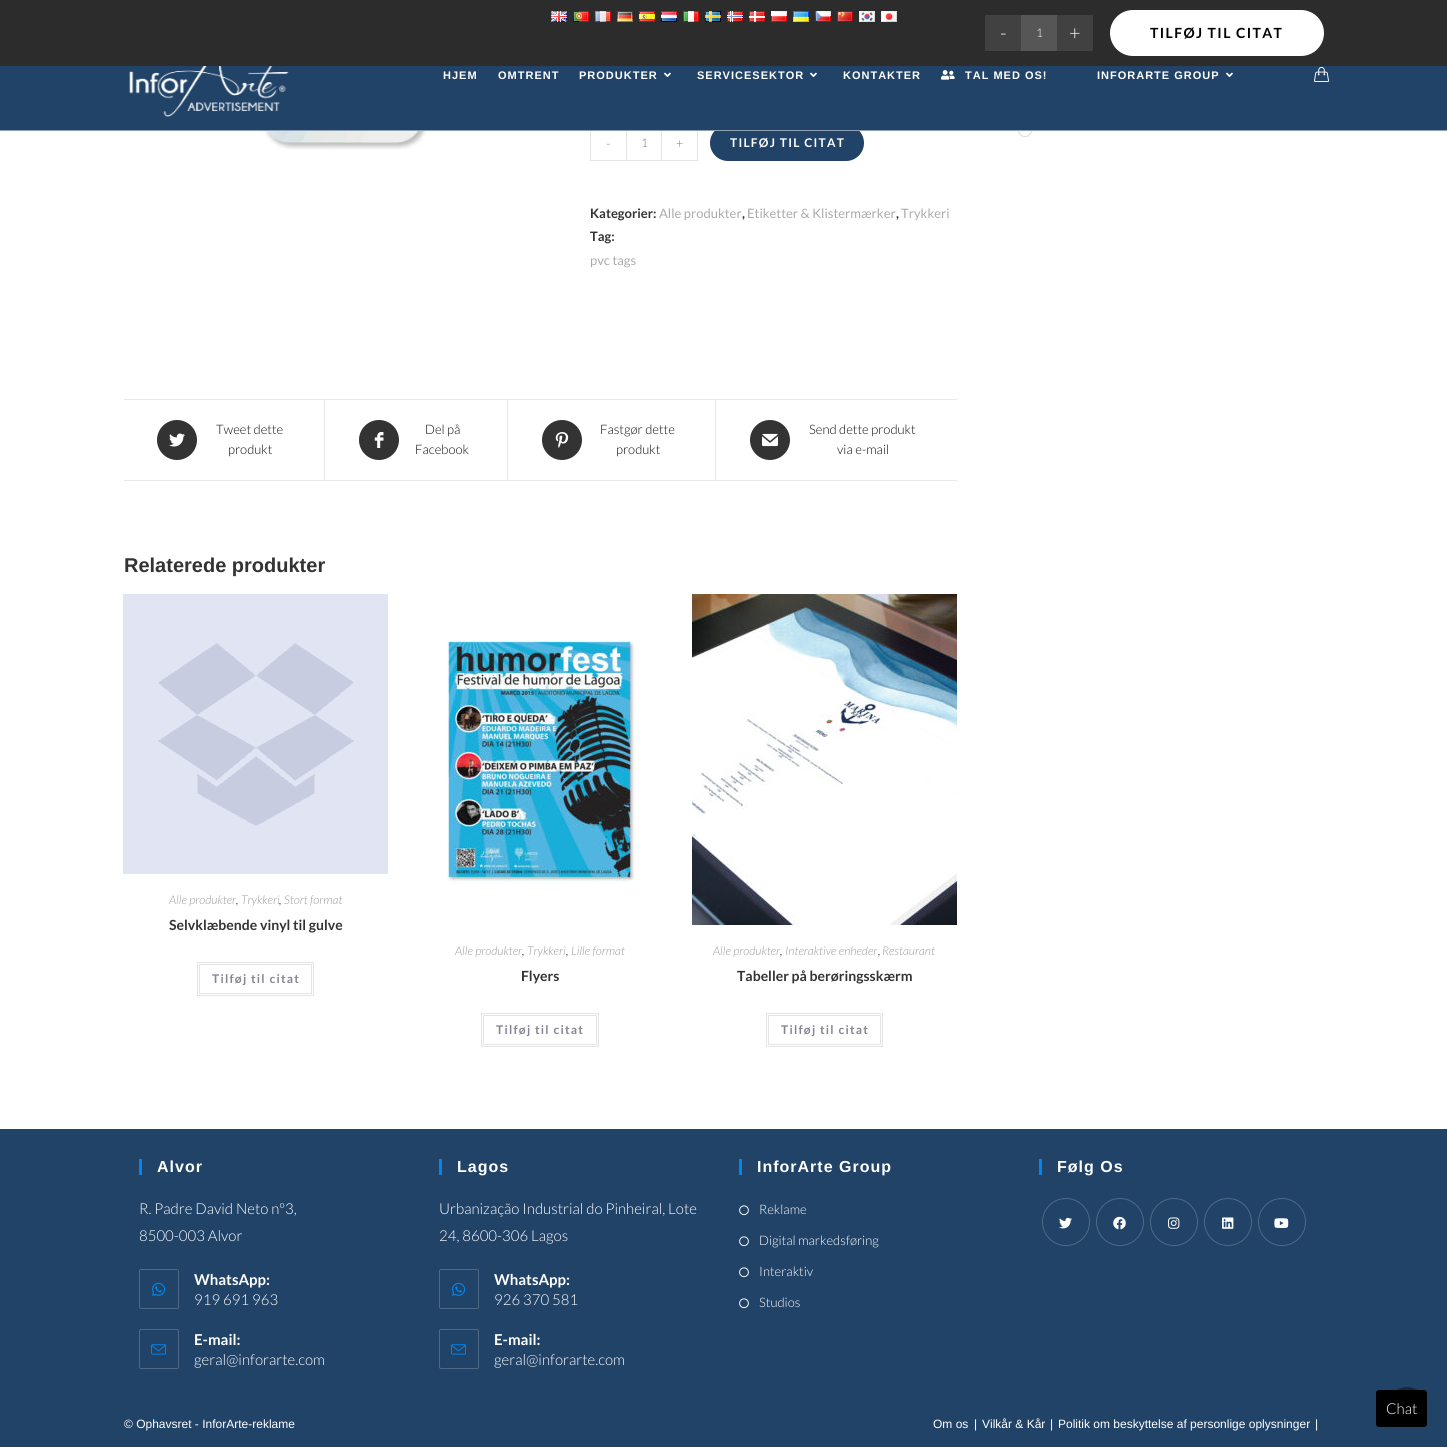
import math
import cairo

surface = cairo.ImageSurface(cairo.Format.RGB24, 1447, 1447)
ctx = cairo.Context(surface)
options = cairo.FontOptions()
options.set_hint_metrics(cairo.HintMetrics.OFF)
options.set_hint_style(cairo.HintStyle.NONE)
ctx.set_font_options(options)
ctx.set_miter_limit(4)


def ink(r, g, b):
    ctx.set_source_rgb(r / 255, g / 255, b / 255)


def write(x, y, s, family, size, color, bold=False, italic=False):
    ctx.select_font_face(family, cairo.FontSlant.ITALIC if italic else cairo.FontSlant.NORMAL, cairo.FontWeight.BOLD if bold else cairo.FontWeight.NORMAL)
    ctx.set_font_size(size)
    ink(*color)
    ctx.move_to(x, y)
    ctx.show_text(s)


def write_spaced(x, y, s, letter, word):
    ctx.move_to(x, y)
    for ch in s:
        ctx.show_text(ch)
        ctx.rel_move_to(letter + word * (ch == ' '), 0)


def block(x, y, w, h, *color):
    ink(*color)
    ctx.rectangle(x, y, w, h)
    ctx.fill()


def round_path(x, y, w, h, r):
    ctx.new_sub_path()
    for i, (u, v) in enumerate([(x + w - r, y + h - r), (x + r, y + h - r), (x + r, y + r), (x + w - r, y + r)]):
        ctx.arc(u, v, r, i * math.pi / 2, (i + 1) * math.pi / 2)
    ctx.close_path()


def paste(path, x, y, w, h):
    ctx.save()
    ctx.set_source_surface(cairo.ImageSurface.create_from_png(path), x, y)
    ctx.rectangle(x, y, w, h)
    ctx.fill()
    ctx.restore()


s1 = dict(family="Lato Light", size=20, color=(255, 255, 255))
s2 = dict(family="Lato Light", size=12, color=(255, 255, 255))
s3 = dict(family="Lato Light", size=13, color=(119, 119, 119))
s4 = dict(family="Lato Light", size=12, color=(119, 119, 119))
s5 = dict(family="Lato", size=13, color=(51, 51, 51), bold=True)
s6 = dict(family="Lato", size=13, color=(171, 171, 171))
s7 = dict(family="Lato Light", size=13, color=(10, 10, 10))
s8 = dict(family="Liberation Sans", size=20, color=(51, 51, 51), bold=True)
s9 = dict(family="Lato Light", size=12, color=(153, 153, 153), italic=True)
s10 = dict(family="Lato Light", size=12, color=(0, 0, 0), italic=True)
s11 = dict(family="Lato", size=14, color=(51, 51, 51), bold=True)
s12 = dict(family="Lato Light", size=15, color=(255, 255, 255))
s13 = dict(family="Lato", size=15, color=(255, 255, 255), bold=True)
s14 = dict(family="Lato Light", size=13, color=(255, 255, 255))
s15 = dict(family="Liberation Sans", size=12, color=(255, 255, 255))

ink(255, 255, 255)
ctx.paint()
block(0, 0, 1447, 66, 44, 44, 44)
paste("pic1.png", 551, 11, 16, 11)
paste("pic2.png", 573, 11, 16, 11)
paste("pic3.png", 595, 11, 16, 11)
paste("pic4.png", 617, 11, 16, 11)
paste("pic5.png", 639, 11, 16, 11)
paste("pic6.png", 661, 11, 16, 11)
paste("pic7.png", 683, 11, 16, 11)
paste("pic8.png", 705, 11, 16, 11)
paste("pic9.png", 727, 11, 16, 11)
paste("pic10.png", 749, 11, 16, 11)
paste("pic11.png", 771, 11, 16, 11)
paste("pic12.png", 793, 11, 16, 11)
paste("pic13.png", 815, 11, 16, 11)
paste("pic14.png", 837, 11, 16, 11)
paste("pic15.png", 859, 11, 16, 11)
paste("pic16.png", 881, 11, 16, 11)
block(985, 15, 36, 36, 65, 65, 65)
write(1000, 40, "-", **s1)
block(1021, 15, 36, 36, 86, 86, 86)
write(1036, 37, "1", **s2)
block(1057, 15, 36, 36, 65, 65, 65)
write(1069, 40, "+", **s1)
round_path(1110, 10, 214, 46, 23)
ctx.fill()
ctx.select_font_face("Lato", cairo.FontSlant.NORMAL, cairo.FontWeight.BOLD)
ctx.set_font_size(14)
ink(0, 0, 0)
write_spaced(1150, 38, "TILFØJ TIL CITAT", 1.4, 0)
ctx.new_path()
ctx.arc(1025, 130, 6.5, 0, 2 * math.pi)
ink(217, 217, 217)
ctx.set_line_width(1)
ctx.stroke()
block(590, 160, 36, 1, 228, 228, 228)
block(590, 125, 1, 36, 228, 228, 228)
ctx.rectangle(626.5, 125.5, 35, 35)
ctx.stroke()
block(697, 125, 1, 36, 228, 228, 228)
ink(33, 67, 104)
round_path(710, 125, 154, 36, 18)
ctx.fill()
block(0, 66, 1447, 64, 33, 67, 104)
block(0, 130, 1447, 1, 144, 161, 180)
paste("pic17.png", 129, 66, 160, 51)
ctx.select_font_face("Liberation Sans", cairo.FontSlant.NORMAL, cairo.FontWeight.BOLD)
ctx.set_font_size(11)
ink(255, 255, 255)
write_spaced(443, 79, "HJEM", 1, 0)
write_spaced(498, 79, "OMTRENT", 1, 0)
write_spaced(579, 79, "PRODUKTER", 1, 0)
paste("pic18.png", 664, 72, 7, 5)
write_spaced(697, 79, "SERVICESEKTOR", 1, 0)
paste("pic18.png", 810, 72, 7, 5)
write_spaced(843, 79, "KONTAKTER", 1, 0)
paste("pic19.png", 941, 70, 14, 10)
write_spaced(965, 79, "TAL MED OS!", 1, 0)
write_spaced(1097, 79, "INFORARTE GROUP", 1, 0)
paste("pic18.png", 1226, 72, 7, 5)
paste("pic20.png", 1314, 66, 15, 16)
paste("pic21.png", 261, 131, 168, 19)
write(606, 148, "-", **s3)
write(641, 147, "1", **s4)
block(662, 160, 36, 1, 228, 228, 228)
write(676, 148, "+", **s3)
ctx.select_font_face("Lato", cairo.FontSlant.NORMAL, cairo.FontWeight.BOLD)
ctx.set_font_size(12)
ink(255, 255, 255)
write_spaced(730, 147, "TILFØJ TIL CITAT", 1.25, 0)
write(590, 218, "Kategorier:", **s5)
write(659, 218, "Alle produkter", **s6)
write(742, 218, ",", **s5)
write(747, 218, "Etiketter & Klistermærker", **s6)
write(896, 218, ",", **s5)
write(901, 218, "Trykkeri", **s6)
write(590, 241, "Tag:", **s5)
write(590, 265, "pvc tags", **s6)
block(124, 399, 833, 1, 233, 233, 233)
block(124, 480, 833, 1, 233, 233, 233)
block(324, 400, 1, 80, 233, 233, 233)
ink(51, 51, 51)
ctx.new_path()
ctx.arc(177, 440, 20, 0, 2 * math.pi)
ctx.fill()
paste("pic22.png", 169, 433, 16, 14)
write(216, 434, "Tweet dette", **s7)
write(228, 454, "produkt", **s7)
block(507, 400, 1, 80, 233, 233, 233)
ink(51, 51, 51)
ctx.new_path()
ctx.arc(379, 440, 20, 0, 2 * math.pi)
ctx.fill()
paste("pic23.png", 374, 432, 10, 16)
write(425, 434, "Del på", **s7)
write(415, 454, "Facebook", **s7)
block(715, 400, 1, 80, 233, 233, 233)
ink(51, 51, 51)
ctx.new_path()
ctx.arc(562, 440, 20, 0, 2 * math.pi)
ctx.fill()
paste("pic24.png", 555, 432, 14, 16)
write(600, 434, "Fastgør dette", **s7)
write(616, 454, "produkt", **s7)
ink(51, 51, 51)
ctx.new_path()
ctx.arc(770, 440, 20, 0, 2 * math.pi)
ctx.fill()
paste("pic25.png", 762, 433, 16, 14)
write(809, 434, "Send dette produkt", **s7)
write(837, 454, "via e-mail", **s7)
write(124, 572, "Relaterede produkter", **s8)
paste("pic26.png", 123, 594, 265, 280)
write(169, 904, "Alle produkter", **s9)
write(236, 904, ",", **s10)
write(241, 904, "Trykkeri", **s9)
write(279, 904, ",", **s10)
write(284, 904, "Stort format", **s9)
write(169, 930, "Selvklæbende vinyl til gulve", **s11)
ctx.rectangle(197.5, 962.5, 116, 33)
ink(228, 228, 228)
ctx.stroke()
ctx.rectangle(199.5, 964.5, 112, 29)
ctx.stroke()
ctx.set_font_size(12)
ink(132, 132, 148)
write_spaced(212, 983, "Tilføj til citat", 1.25, 0)
paste("pic27.png", 447, 640, 188, 242)
write(455, 955, "Alle produkter", **s9)
write(527, 955, "Trykkeri", **s9)
write(571, 955, "Lille format", **s9)
write(522, 955, ",", **s10)
write(566, 955, ",", **s10)
write(521, 981, "Flyers", **s11)
ctx.rectangle(481.5, 1013.5, 117, 33)
ink(228, 228, 228)
ctx.stroke()
ctx.rectangle(483.5, 1015.5, 113, 29)
ctx.stroke()
ctx.set_font_size(12)
ink(132, 132, 148)
write_spaced(496, 1034, "Tilføj til citat", 1.25, 0)
paste("pic28.png", 692, 594, 265, 331)
write(713, 955, "Alle produkter", **s9)
write(785, 955, "Interaktive enheder", **s9)
write(882, 955, "Restaurant", **s9)
write(780, 955, ",", **s10)
write(878, 955, ",", **s10)
write(737, 981, "Tabeller på berøringsskærm", **s11)
ctx.rectangle(766.5, 1013.5, 116, 33)
ink(228, 228, 228)
ctx.stroke()
ctx.rectangle(768.5, 1015.5, 112, 29)
ctx.stroke()
ctx.set_font_size(12)
ink(132, 132, 148)
write_spaced(781, 1034, "Tilføj til citat", 1.25, 0)
block(0, 1129, 1447, 318, 33, 67, 104)
block(139, 1159, 3, 16, 0, 134, 237)
ctx.select_font_face("Liberation Sans", cairo.FontSlant.NORMAL, cairo.FontWeight.BOLD)
ctx.set_font_size(16)
ink(255, 255, 255)
write_spaced(157, 1172, "Alvor", 1, 0)
write(139, 1214, "R. Padre David Neto nº3,", **s12)
write(139, 1241, "8500-003 Alvor", **s12)
round_path(139.5, 1269.5, 39, 39, 1.5)
ink(77, 105, 134)
ctx.stroke()
paste("pic29.png", 152, 1282, 14, 14)
write(194, 1285, "WhatsApp:", **s13)
write(194, 1305, "919 691 963", **s12)
round_path(139.5, 1329.5, 39, 39, 1.5)
ink(77, 105, 134)
ctx.stroke()
paste("pic30.png", 151, 1344, 15, 11)
write(194, 1345, "E-mail:", **s13)
write(194, 1365, "geral@inforarte.com", **s12)
block(439, 1159, 3, 16, 0, 134, 237)
ctx.select_font_face("Liberation Sans", cairo.FontSlant.NORMAL, cairo.FontWeight.BOLD)
ctx.set_font_size(16)
ink(255, 255, 255)
write_spaced(457, 1172, "Lagos", 1, 0)
write(439, 1214, "Urbanização Industrial do Pinheiral, Lote", **s12)
write(439, 1241, "24, 8600-306 Lagos", **s12)
round_path(439.5, 1269.5, 39, 39, 1.5)
ink(77, 105, 134)
ctx.stroke()
paste("pic29.png", 452, 1282, 14, 14)
write(494, 1285, "WhatsApp:", **s13)
write(494, 1305, "926 370 581", **s12)
round_path(439.5, 1329.5, 39, 39, 1.5)
ink(77, 105, 134)
ctx.stroke()
paste("pic30.png", 451, 1344, 15, 11)
write(494, 1345, "E-mail:", **s13)
write(494, 1365, "geral@inforarte.com", **s12)
block(739, 1159, 3, 16, 0, 134, 237)
ctx.select_font_face("Liberation Sans", cairo.FontSlant.NORMAL, cairo.FontWeight.BOLD)
ctx.set_font_size(16)
ink(255, 255, 255)
write_spaced(757, 1172, "InforArte Group", 1, 0)
paste("pic31.png", 739, 1205, 10, 11)
write(759, 1214, "Reklame", **s14)
paste("pic31.png", 739, 1236, 10, 11)
write(759, 1245, "Digital markedsføring", **s14)
paste("pic31.png", 739, 1267, 10, 11)
write(759, 1276, "Interaktiv", **s14)
paste("pic31.png", 739, 1298, 10, 11)
write(759, 1307, "Studios", **s14)
block(1039, 1159, 3, 16, 0, 134, 237)
ctx.select_font_face("Liberation Sans", cairo.FontSlant.NORMAL, cairo.FontWeight.BOLD)
ctx.set_font_size(16)
ink(255, 255, 255)
write_spaced(1057, 1172, "Følg Os", 1, 0)
ctx.new_path()
ctx.arc(1066, 1222, 23.5, 0, 2 * math.pi)
ink(77, 105, 134)
ctx.stroke()
paste("pic32.png", 1059, 1217, 13, 12)
ctx.arc(1120, 1222, 23.5, 0, 2 * math.pi)
ctx.stroke()
paste("pic33.png", 1113, 1216, 13, 14)
ctx.arc(1174, 1222, 23.5, 0, 2 * math.pi)
ctx.stroke()
paste("pic34.png", 1168, 1217, 12, 12)
ctx.arc(1228, 1222, 23.5, 0, 2 * math.pi)
ctx.stroke()
paste("pic35.png", 1222, 1217, 12, 12)
ctx.arc(1282, 1222, 23.5, 0, 2 * math.pi)
ctx.stroke()
paste("pic36.png", 1274, 1218, 15, 10)
write(124, 1428, "© Ophavsret - InforArte-reklame", **s15)
write(933, 1428, "Om os", **s15)
write(974, 1428, "|", **s15)
write(982, 1428, "Vilkår & Kår", **s15)
write(1050, 1428, "|", **s15)
write(1058, 1428, "Politik om beskyttelse af personlige oplysninger", **s15)
write(1315, 1428, "|", **s15)
ink(20, 40, 62)
ctx.new_path()
ctx.arc(1407, 1407, 20, 0, 2 * math.pi)
ctx.fill()
ink(0, 0, 0)
round_path(1376, 1390, 51, 37, 3)
ctx.fill()
write(1386, 1414, "Chat", **s12)
surface.write_to_png("screenshot.png")
